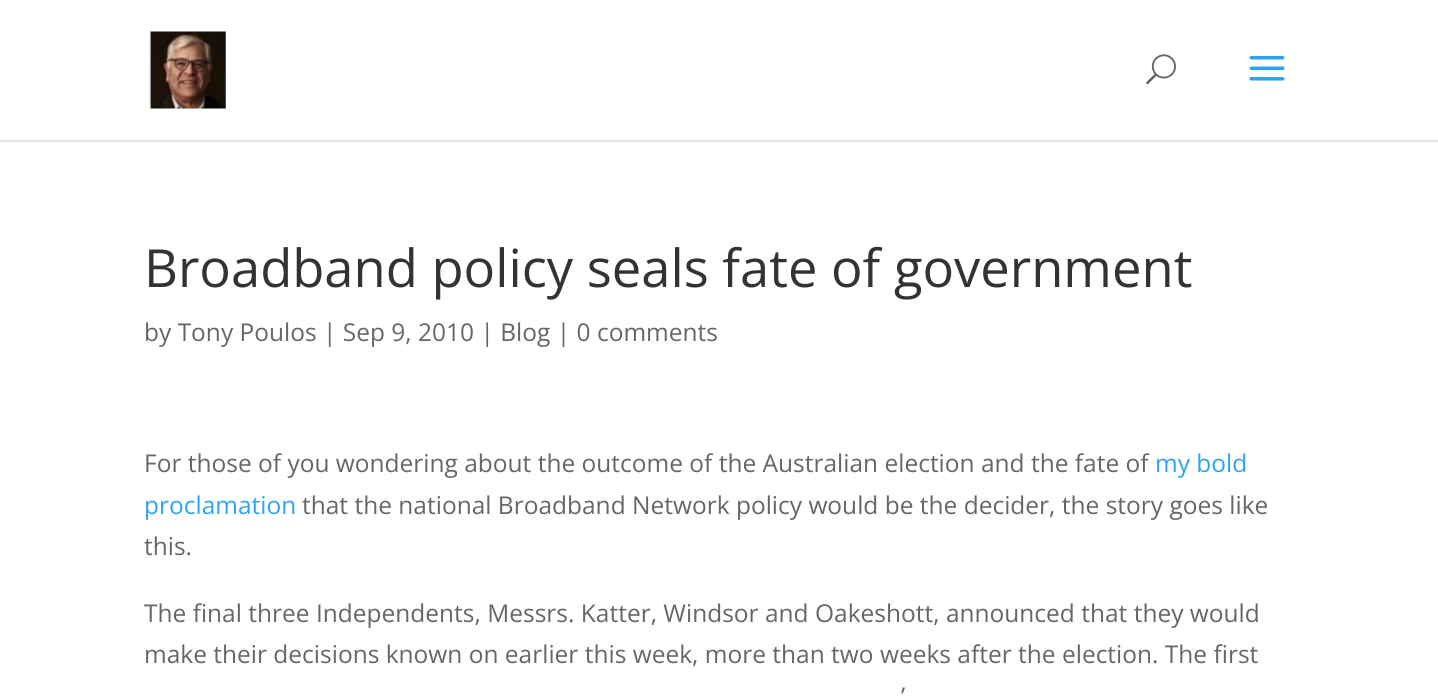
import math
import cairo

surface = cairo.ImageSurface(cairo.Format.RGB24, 1438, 697)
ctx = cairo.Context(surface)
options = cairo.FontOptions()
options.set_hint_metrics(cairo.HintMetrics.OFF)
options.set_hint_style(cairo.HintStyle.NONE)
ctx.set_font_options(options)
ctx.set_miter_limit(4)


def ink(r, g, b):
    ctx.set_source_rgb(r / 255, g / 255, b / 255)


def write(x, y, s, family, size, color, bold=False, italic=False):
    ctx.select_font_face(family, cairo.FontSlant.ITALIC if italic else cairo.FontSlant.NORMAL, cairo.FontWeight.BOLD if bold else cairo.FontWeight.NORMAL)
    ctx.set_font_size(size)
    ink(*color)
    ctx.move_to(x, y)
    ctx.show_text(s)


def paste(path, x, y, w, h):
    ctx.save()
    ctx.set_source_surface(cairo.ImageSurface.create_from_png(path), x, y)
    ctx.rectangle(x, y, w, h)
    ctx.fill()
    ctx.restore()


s1 = dict(family="Open Sans", size=52.5, color=(51, 51, 51))
s2 = dict(family="Open Sans", size=24.5, color=(102, 102, 102))
s3 = dict(family="Open Sans", size=24.5, color=(46, 163, 242))

ink(255, 255, 255)
ctx.paint()
ink(230, 230, 230)
ctx.new_path()
ctx.move_to(0, 140)
ctx.line_to(0, 142)
ctx.line_to(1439, 142)
ctx.line_to(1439, 2)
ctx.line_to(1438, 2)
ctx.line_to(1438, 140)
ctx.close_path()
ctx.fill()
paste("pic1.png", 149, 31, 77, 78)
paste("pic2.png", 1146, 54, 30, 31)
paste("pic3.png", 1249, 56, 36, 25)
write(144, 287, "Broadband policy seals fate of government", **s1)
write(144, 341, "by Tony Poulos | Sep 9, 2010 | Blog | 0 comments", **s2)
write(144, 472, "For those of you wondering about the outcome of the Australian election and the fate of", **s2)
write(1155, 472, "my bold", **s3)
write(144, 514, "proclamation", **s3)
write(302, 514, "that the national Broadband Network policy would be the decider, the story goes like", **s2)
write(144, 555, "this.", **s2)
write(144, 622, "The final three Independents, Messrs. Katter, Windsor and Oakeshott, announced that they would", **s2)
write(144, 663, "make their decisions known on earlier this week, more than two weeks after the election. The first", **s2)
write(901, 705, "’", **s2)
surface.write_to_png("screenshot.png")
